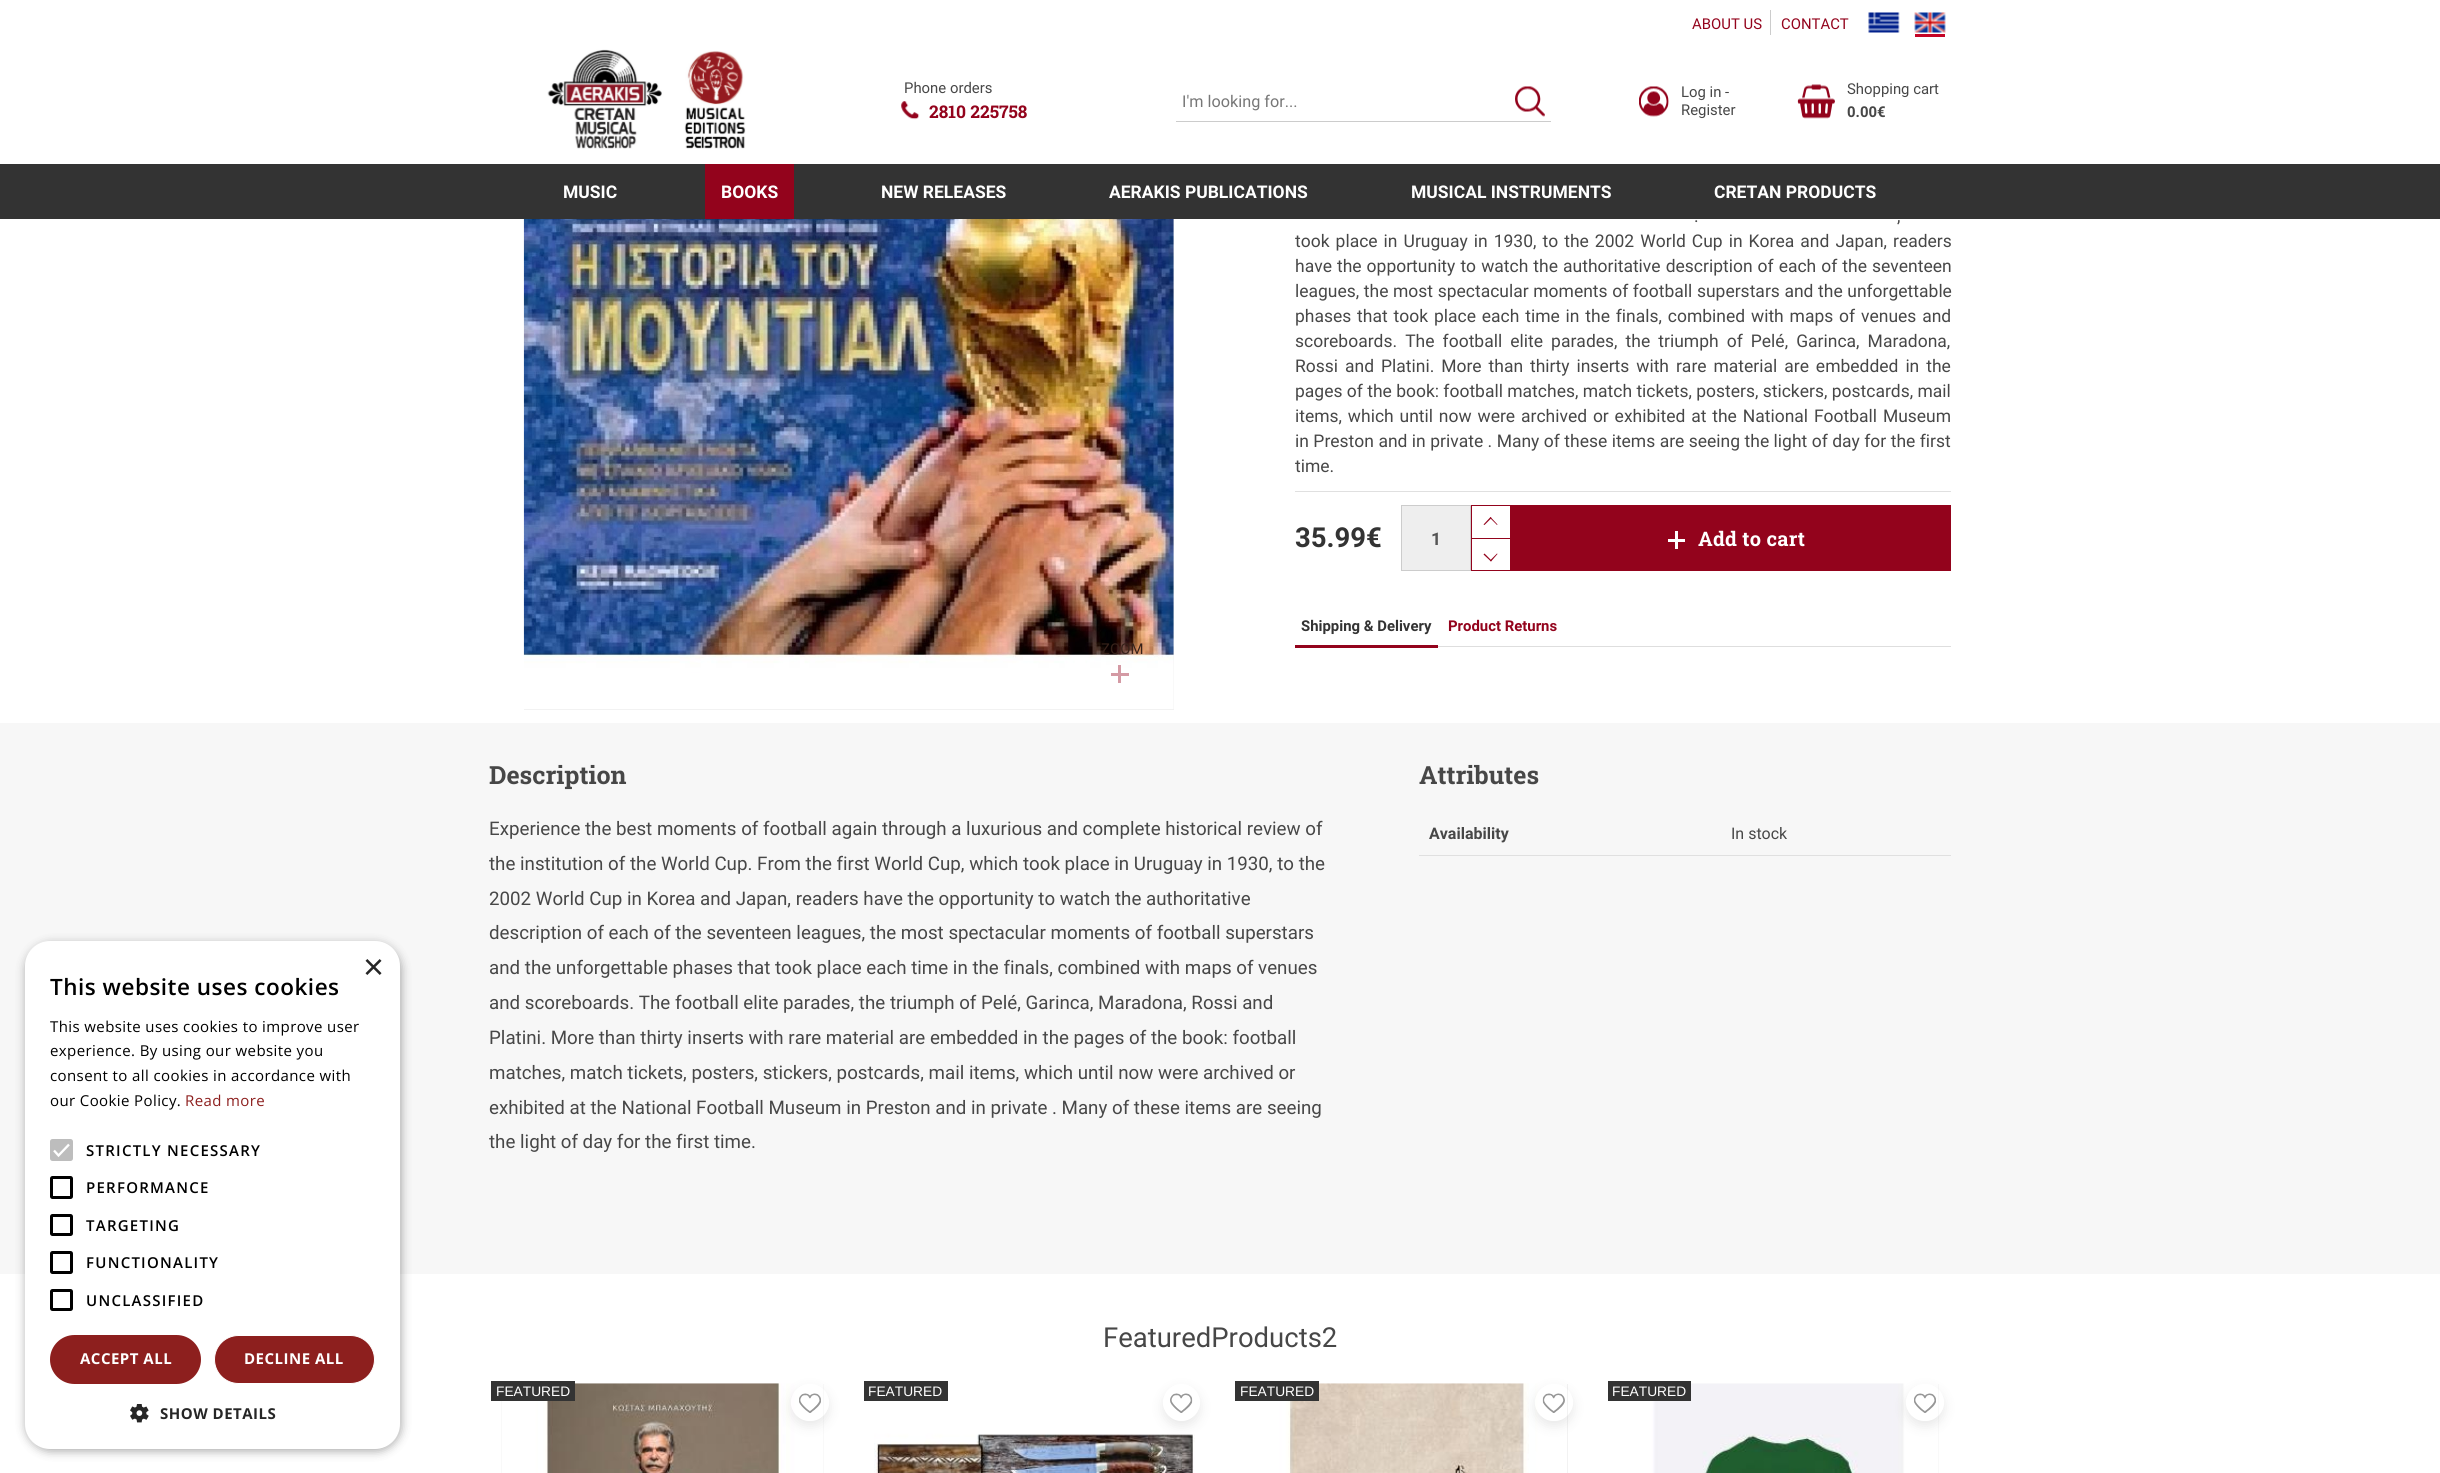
import math
import cairo

surface = cairo.ImageSurface(cairo.Format.RGB24, 2440, 1473)
ctx = cairo.Context(surface)
options = cairo.FontOptions()
options.set_hint_metrics(cairo.HintMetrics.OFF)
options.set_hint_style(cairo.HintStyle.NONE)
ctx.set_font_options(options)
ctx.set_miter_limit(4)


def ink(r, g, b):
    ctx.set_source_rgb(r / 255, g / 255, b / 255)


def write(x, y, s, family, size, color, bold=False, italic=False):
    ctx.select_font_face(family, cairo.FontSlant.ITALIC if italic else cairo.FontSlant.NORMAL, cairo.FontWeight.BOLD if bold else cairo.FontWeight.NORMAL)
    ctx.set_font_size(size)
    ink(*color)
    ctx.move_to(x, y)
    ctx.show_text(s)


def write_spaced(x, y, s, letter, word):
    ctx.move_to(x, y)
    for ch in s:
        ctx.show_text(ch)
        ctx.rel_move_to(letter + word * (ch == ' '), 0)


def block(x, y, w, h, *color):
    ink(*color)
    ctx.rectangle(x, y, w, h)
    ctx.fill()


def round_path(x, y, w, h, r):
    ctx.new_sub_path()
    for i, (u, v) in enumerate([(x + w - r, y + h - r), (x + r, y + h - r), (x + r, y + r), (x + w - r, y + r)]):
        ctx.arc(u, v, r, i * math.pi / 2, (i + 1) * math.pi / 2)
    ctx.close_path()


def blur_box(x, y, w, h, r, blur, alpha):
    ctx.push_group_with_content(cairo.Content.ALPHA)
    ctx.set_operator(cairo.Operator.SOURCE)
    for i in range(15, -16, -2):
        e = blur * i / 6
        if min(w, h) + 2 * e > 0:
            ctx.set_source_rgba(0, 0, 0, alpha * math.erfc((i - 1) / 8.5) / 2)
            round_path(x - e, y - e, w + 2 * e, h + 2 * e, max(0, min(r + e + blur * .6, min(w, h) / 2 + e)))
            ctx.fill()
    ctx.mask(ctx.pop_group())


def paste(path, x, y, w, h):
    ctx.save()
    ctx.set_source_surface(cairo.ImageSurface.create_from_png(path), x, y)
    ctx.rectangle(x, y, w, h)
    ctx.fill()
    ctx.restore()


s1 = dict(family="Liberation Sans", size=36, color=(38, 38, 38))
s2 = dict(family="Roboto", size=14.9, color=(147, 3, 28))
s3 = dict(family="Roboto", size=14.9, color=(71, 71, 71))
s4 = dict(family="Roboto Slab", size=17.5, color=(147, 3, 28), bold=True)
s5 = dict(family="Roboto", size=16.25, color=(119, 119, 119))
s6 = dict(family="Roboto", size=14.9, color=(71, 71, 71), bold=True)
s7 = dict(family="Roboto", size=17.5, color=(255, 255, 255), bold=True)
s8 = dict(family="Roboto", size=17.5, color=(71, 71, 71))
s9 = dict(family="Roboto", size=27.5, color=(51, 51, 51), bold=True)
s10 = dict(family="Roboto", size=17.5, color=(85, 85, 85), bold=True)
s11 = dict(family="Roboto", size=14.9, color=(51, 51, 51), bold=True)
s12 = dict(family="Roboto", size=14.9, color=(147, 3, 28), bold=True)
s13 = dict(family="Roboto", size=14.9, color=(55, 34, 26))
s14 = dict(family="Roboto Slab", size=25, color=(71, 71, 71), bold=True)
s15 = dict(family="Roboto", size=18.75, color=(71, 71, 71))
s16 = dict(family="Roboto", size=16, color=(71, 71, 71), bold=True)
s17 = dict(family="Roboto", size=16, color=(71, 71, 71))
s18 = dict(family="Roboto", size=27.5, color=(71, 71, 71))
s19 = dict(family="Liberation Sans", size=13.75, color=(255, 255, 255))

ink(255, 255, 255)
ctx.paint()
block(0, 723, 2440, 551, 247, 247, 247)
ink(0, 0, 0)
blur_box(26, 944, 375, 507, 25, 5, 0.35)
ink(255, 255, 255)
round_path(25, 941, 375, 508, 25)
ctx.fill()
write(363, 979, "×", **s1)
ctx.select_font_face("Open Sans SemiBold")
ctx.set_font_size(22.5)
ink(0, 0, 0)
write_spaced(50, 995, "This website uses cookies", 0.5, 0)
ctx.select_font_face("Open Sans")
ctx.set_font_size(15)
write_spaced(50, 1032, "This website uses cookies to improve user", 0.4, 0)
write_spaced(50, 1056, "experience. By using our website you", 0.4, 0)
write_spaced(50, 1081, "consent to all cookies in accordance with", 0.4, 0)
write_spaced(50, 1106, "our Cookie Policy.", 0.4, 0)
ink(141, 31, 30)
write_spaced(185, 1106, "Read more", 0.4, 0)
ink(189, 189, 189)
round_path(50, 1139, 23, 22, 2.5)
ctx.fill()
ctx.new_path()
ctx.move_to(54, 1150.5)
ctx.line_to(58.5, 1155.5)
ctx.line_to(69, 1144.5)
ink(255, 255, 255)
ctx.set_line_width(2.3)
ctx.stroke()
ctx.select_font_face("Open Sans SemiBold")
ink(0, 0, 0)
write_spaced(86, 1156, "STRICTLY NECESSARY", 1.25, 0)
round_path(51.5, 1177.5, 20, 20, 1)
ctx.set_line_width(3)
ctx.stroke()
write_spaced(86, 1193, "PERFORMANCE", 1.25, 0)
round_path(51.5, 1215.5, 20, 19, 1)
ctx.stroke()
write_spaced(86, 1231, "TARGETING", 1.25, 0)
round_path(51.5, 1252.5, 20, 20, 1)
ctx.stroke()
write_spaced(86, 1268, "FUNCTIONALITY", 1.25, 0)
round_path(51.5, 1290.5, 20, 19, 1)
ctx.stroke()
write_spaced(86, 1306, "UNCLASSIFIED", 1.25, 0)
ink(141, 31, 30)
round_path(50, 1335, 151, 49, 24.5)
ctx.fill()
ctx.select_font_face("Open Sans", cairo.FontSlant.NORMAL, cairo.FontWeight.BOLD)
ink(255, 255, 255)
write_spaced(80, 1364, "ACCEPT ALL", 0.5, 0)
ink(141, 31, 30)
round_path(214.5, 1335.5, 160, 48, 24)
ctx.fill_preserve()
ink(255, 255, 255)
ctx.set_line_width(1)
ctx.stroke()
write_spaced(244, 1364, "DECLINE ALL", 0.5, 0)
paste("pic1.png", 130, 1404, 19, 19)
ink(38, 38, 38)
write_spaced(160, 1419, "SHOW DETAILS", 0.5, 0)
write(1692, 29, "ABOUT US", **s2)
block(1770, 10, 1, 25, 204, 204, 204)
write(1781, 29, "CONTACT", **s2)
paste("pic2.png", 1868, 12, 32, 21)
block(1915, 34, 30, 3, 197, 4, 38)
paste("pic3.png", 1914, 12, 32, 21)
paste("pic4.png", 547, 49, 199, 100)
write(904, 93, "Phone orders", **s3)
paste("pic5.png", 901, 101, 19, 19)
write(929, 118, "2810 225758", **s4)
block(1176, 121, 375, 1, 204, 204, 204)
write(1182, 107, "I'm looking for...", **s5)
paste("pic6.png", 1515, 86, 30, 31)
paste("pic7.png", 1639, 86, 30, 31)
write(1681, 97, "Log in -", **s3)
write(1681, 115, "Register", **s3)
paste("pic8.png", 1797, 84, 38, 35)
write(1847, 94, "Shopping cart", **s3)
write(1847, 117, "0.00€", **s6)
block(0, 164, 2440, 55, 51, 51, 51)
write(563, 198, "MUSIC", **s7)
block(705, 164, 89, 55, 147, 3, 28)
write(721, 198, "BOOKS", **s7)
write(881, 198, "NEW RELEASES", **s7)
write(1109, 198, "AERAKIS PUBLICATIONS", **s7)
write(1411, 198, "MUSICAL INSTRUMENTS", **s7)
write(1714, 198, "CRETAN PRODUCTS", **s7)
block(1295, 491, 656, 1, 224, 224, 224)
ctx.select_font_face("Roboto")
ink(71, 71, 71)
write_spaced(1694, 222, ".", 0, 1)
write_spaced(1897, 222, ",", 0, 1)
write_spaced(1295, 247, "took place in Uruguay in 1930, to the 2002 World Cup in Korea and Japan, readers", 0, 1.7)
write_spaced(1295, 272, "have the opportunity to watch the authoritative description of each of the seventeen", 0, 0.7)
write_spaced(1295, 297, "leagues, the most spectacular moments of football superstars and the unforgettable", 0, 0.25)
write_spaced(1295, 322, "phases that took place each time in the finals, combined with maps of venues and", 0, 1.5)
write_spaced(1295, 347, "scoreboards. The football elite parades, the triumph of Pelé, Garinca, Maradona,", 0, 3.75)
write_spaced(1295, 372, "Rossi and Platini. More than thirty inserts with rare material are embedded in the", 0, 2.6)
write(1295, 397, "pages of the book: football matches, match tickets, posters, stickers, postcards, mail", **s8)
write_spaced(1295, 422, "items, which until now were archived or exhibited at the National Football Museum", 0, 1.5)
write_spaced(1295, 447, "in Preston and in private . Many of these items are seeing the light of day for the first", 0, 0.1)
write(1295, 472, "time.", **s8)
write(1295, 547, "35.99€", **s9)
ink(238, 238, 238)
ctx.rectangle(1401.5, 505.5, 69, 65)
ctx.fill_preserve()
ink(204, 204, 204)
ctx.stroke()
write(1431, 545, "1", **s10)
ctx.rectangle(1471.5, 505.5, 39, 33)
ink(147, 3, 28)
ctx.stroke()
ctx.new_path()
ctx.move_to(1483.5, 524.5)
ctx.line_to(1490.5, 517)
ctx.line_to(1491.5, 518)
ctx.line_to(1484.5, 525)
ctx.close_path()
ctx.fill()
ctx.new_path()
ctx.move_to(1490, 518)
ctx.line_to(1490.5, 517)
ctx.line_to(1497.5, 524.5)
ctx.line_to(1497, 525)
ctx.close_path()
ctx.move_to(1497.5, 554)
ctx.line_to(1491, 561.5)
ctx.line_to(1490, 560.5)
ctx.line_to(1497, 553.5)
ctx.close_path()
ctx.fill()
block(1510, 539, 1, 32, 147, 3, 28)
block(1471, 570, 40, 1, 147, 3, 28)
block(1471, 539, 1, 32, 147, 3, 28)
ctx.new_path()
ctx.move_to(1491.5, 560.5)
ctx.line_to(1491, 561.5)
ctx.line_to(1483.5, 554.5)
ctx.line_to(1484.5, 553.5)
ctx.close_path()
ctx.fill()
block(1511, 505, 440, 66, 147, 3, 28)
block(1668, 539, 17, 3, 255, 255, 255)
block(1675, 531, 3, 18, 255, 255, 255)
ctx.select_font_face("Roboto Slab", cairo.FontSlant.NORMAL, cairo.FontWeight.BOLD)
ctx.set_font_size(20)
write_spaced(1698, 546, "Add to cart", 0.25, 0)
block(1438, 646, 513, 1, 222, 222, 222)
block(1295, 645, 143, 3, 147, 3, 28)
write(1301, 631, "Shipping & Delivery", **s11)
write(1448, 631, "Product Returns", **s12)
block(524, 219, 650, 491, 242, 242, 242)
paste("pic9.png", 523, 219, 651, 490)
write(1101, 654, "ZOOM", **s13)
block(1111, 673, 18, 3, 212, 154, 164)
block(1118, 665, 3, 18, 212, 154, 164)
write(489, 784, "Description", **s14)
write(489, 835, "Experience the best moments of football again through a luxurious and complete historical review of", **s15)
write(489, 870, "the institution of the World Cup. From the first World Cup, which took place in Uruguay in 1930, to the", **s15)
write(489, 905, "2002 World Cup in Korea and Japan, readers have the opportunity to watch the authoritative", **s15)
write(489, 939, "description of each of the seventeen leagues, the most spectacular moments of football superstars", **s15)
write(489, 974, "and the unforgettable phases that took place each time in the finals, combined with maps of venues", **s15)
write(489, 1009, "and scoreboards. The football elite parades, the triumph of Pelé, Garinca, Maradona, Rossi and", **s15)
write(489, 1044, "Platini. More than thirty inserts with rare material are embedded in the pages of the book: football", **s15)
write(489, 1079, "matches, match tickets, posters, stickers, postcards, mail items, which until now were archived or", **s15)
write(489, 1114, "exhibited at the National Football Museum in Preston and in private . Many of these items are seeing", **s15)
write(489, 1148, "the light of day for the first time.", **s15)
write(1419, 784, "Attributes", **s14)
write(1429, 839, "Availability", **s16)
block(1419, 855, 532, 1, 224, 224, 224)
write(1731, 839, "In stock", **s17)
write(1103, 1347, "FeaturedProducts2", **s18)
block(501, 1384, 323, 89, 242, 242, 242)
paste("pic11.png", 501, 1383, 323, 90)
ctx.save()
ctx.set_fill_rule(cairo.FillRule.EVEN_ODD)
ctx.new_path()
ctx.move_to(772, 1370)
ctx.line_to(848, 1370)
ctx.line_to(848, 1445)
ctx.line_to(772, 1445)
ctx.close_path()
ctx.move_to(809.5, 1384)
ctx.line_to(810.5, 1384)
ctx.curve_to(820.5, 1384, 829, 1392.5, 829, 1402.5)
ctx.curve_to(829, 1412.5, 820.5, 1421, 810.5, 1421)
ctx.line_to(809.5, 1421)
ctx.curve_to(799.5, 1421, 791, 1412.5, 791, 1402.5)
ctx.curve_to(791, 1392.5, 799.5, 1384, 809.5, 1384)
ctx.close_path()
ctx.clip()
ink(0, 0, 0)
blur_box(791, 1389, 38, 37, 18.5, 6, 0.09)
ctx.restore()
paste("pic10.png", 799, 1393, 22, 20)
block(491, 1381, 84, 20, 51, 51, 51)
write(496, 1396, "FEATURED", **s19)
paste("pic13.png", 874, 1384, 321, 89)
ctx.save()
ctx.set_fill_rule(cairo.FillRule.EVEN_ODD)
ctx.new_path()
ctx.move_to(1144, 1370)
ctx.line_to(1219, 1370)
ctx.line_to(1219, 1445)
ctx.line_to(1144, 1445)
ctx.close_path()
ctx.move_to(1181.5, 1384)
ctx.curve_to(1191.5, 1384, 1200, 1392.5, 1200, 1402.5)
ctx.curve_to(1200, 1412.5, 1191.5, 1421, 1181.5, 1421)
ctx.curve_to(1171.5, 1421, 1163, 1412.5, 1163, 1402.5)
ctx.curve_to(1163, 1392.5, 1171.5, 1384, 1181.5, 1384)
ctx.close_path()
ctx.clip()
ink(0, 0, 0)
blur_box(1163, 1389, 37, 37, 18.5, 6, 0.09)
ctx.restore()
paste("pic12.png", 1170, 1393, 23, 20)
block(864, 1381, 84, 20, 51, 51, 51)
write(868, 1396, "FEATURED", **s19)
block(1567, 1384, 1, 89, 242, 242, 242)
paste("pic15.png", 1245, 1383, 322, 90)
ctx.save()
ctx.set_fill_rule(cairo.FillRule.EVEN_ODD)
ctx.new_path()
ctx.move_to(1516, 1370)
ctx.line_to(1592, 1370)
ctx.line_to(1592, 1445)
ctx.line_to(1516, 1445)
ctx.close_path()
ctx.move_to(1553.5, 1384)
ctx.line_to(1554.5, 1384)
ctx.curve_to(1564.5, 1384, 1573, 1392.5, 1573, 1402.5)
ctx.curve_to(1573, 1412.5, 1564.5, 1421, 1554.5, 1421)
ctx.line_to(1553.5, 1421)
ctx.curve_to(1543.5, 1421, 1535, 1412.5, 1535, 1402.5)
ctx.curve_to(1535, 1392.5, 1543.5, 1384, 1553.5, 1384)
ctx.close_path()
ctx.clip()
ink(0, 0, 0)
blur_box(1535, 1389, 38, 37, 18.5, 6, 0.09)
ctx.restore()
paste("pic14.png", 1542, 1393, 23, 20)
block(1235, 1381, 84, 20, 51, 51, 51)
write(1240, 1396, "FEATURED", **s19)
block(1938, 1384, 1, 89, 242, 242, 242)
paste("pic16.png", 1618, 1383, 321, 90)
ctx.save()
ctx.set_fill_rule(cairo.FillRule.EVEN_ODD)
ctx.new_path()
ctx.move_to(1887, 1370)
ctx.line_to(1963, 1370)
ctx.line_to(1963, 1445)
ctx.line_to(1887, 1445)
ctx.close_path()
ctx.move_to(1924.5, 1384)
ctx.line_to(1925.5, 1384)
ctx.curve_to(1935.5, 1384, 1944, 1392.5, 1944, 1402.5)
ctx.curve_to(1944, 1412.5, 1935.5, 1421, 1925.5, 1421)
ctx.line_to(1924.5, 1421)
ctx.curve_to(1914.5, 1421, 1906, 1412.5, 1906, 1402.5)
ctx.curve_to(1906, 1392.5, 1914.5, 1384, 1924.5, 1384)
ctx.close_path()
ctx.clip()
ink(0, 0, 0)
blur_box(1906, 1389, 38, 37, 18.5, 6, 0.09)
ctx.restore()
paste("pic10.png", 1914, 1393, 22, 20)
block(1608, 1381, 83, 20, 51, 51, 51)
write(1612, 1396, "FEATURED", **s19)
surface.write_to_png("screenshot.png")
